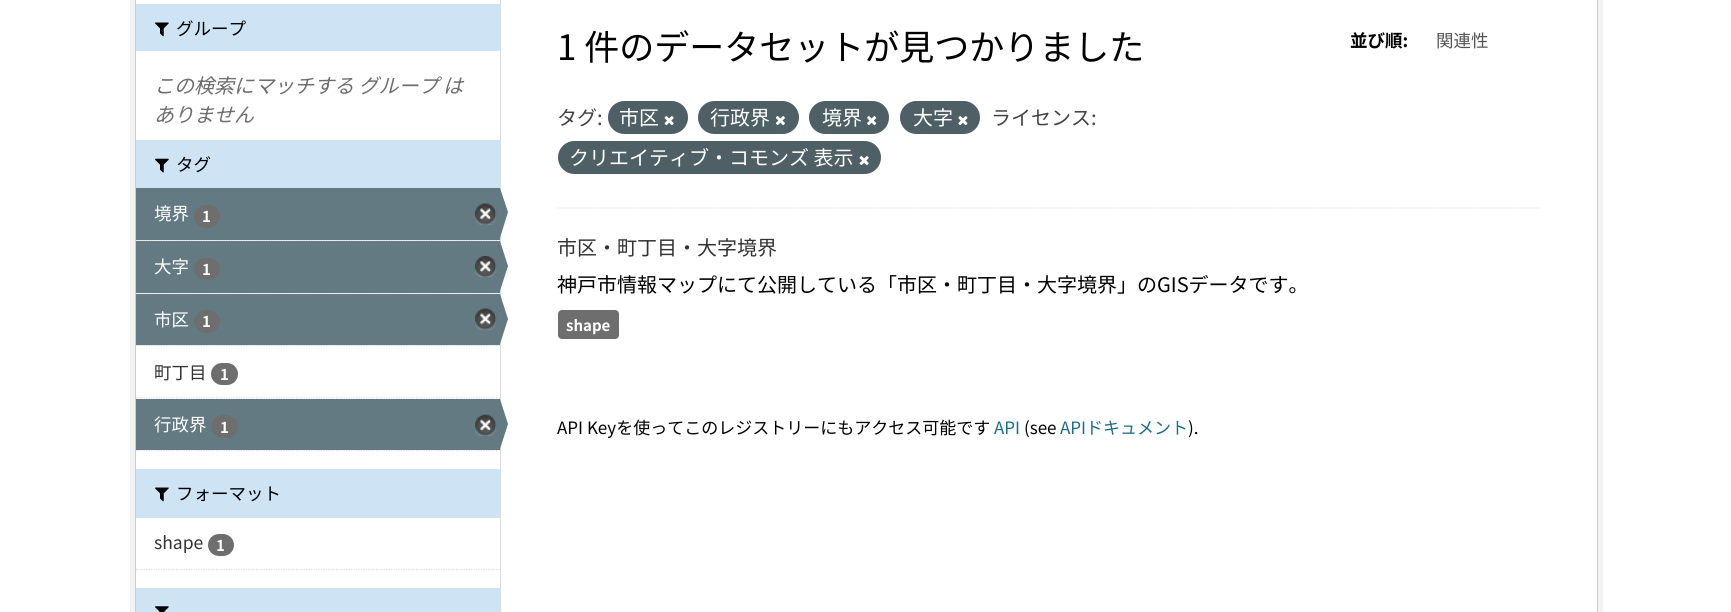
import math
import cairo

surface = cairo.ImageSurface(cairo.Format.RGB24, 1731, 612)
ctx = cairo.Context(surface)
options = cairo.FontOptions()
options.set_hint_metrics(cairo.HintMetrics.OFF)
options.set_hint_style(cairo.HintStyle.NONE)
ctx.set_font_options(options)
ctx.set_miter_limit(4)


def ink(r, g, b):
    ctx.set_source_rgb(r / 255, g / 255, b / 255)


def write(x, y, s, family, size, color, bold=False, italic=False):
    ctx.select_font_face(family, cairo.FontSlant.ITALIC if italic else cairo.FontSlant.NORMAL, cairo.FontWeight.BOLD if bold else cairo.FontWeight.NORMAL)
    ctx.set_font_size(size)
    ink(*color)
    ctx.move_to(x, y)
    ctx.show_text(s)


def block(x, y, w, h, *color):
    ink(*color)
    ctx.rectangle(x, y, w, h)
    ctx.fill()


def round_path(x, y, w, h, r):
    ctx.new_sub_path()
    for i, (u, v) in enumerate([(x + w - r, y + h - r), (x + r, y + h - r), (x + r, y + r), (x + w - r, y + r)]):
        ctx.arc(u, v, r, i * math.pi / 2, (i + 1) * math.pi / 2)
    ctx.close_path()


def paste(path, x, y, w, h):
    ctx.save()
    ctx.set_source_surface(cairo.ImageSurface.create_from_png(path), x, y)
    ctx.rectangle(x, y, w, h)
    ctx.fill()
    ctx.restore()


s1 = dict(family="Noto Sans JP", size=17.5, color=(0, 0, 0))
s2 = dict(family="Noto Sans JP", size=20, color=(110, 110, 110), italic=True)
s3 = dict(family="Noto Sans JP", size=17.5, color=(255, 255, 255))
s4 = dict(family="Noto Sans JP", size=15, color=(255, 255, 255), bold=True)
s5 = dict(family="Noto Sans JP", size=17.5, color=(51, 51, 51))
s6 = dict(family="Noto Sans JP", size=35, color=(0, 0, 0))
s7 = dict(family="Noto Sans JP", size=17.5, color=(0, 0, 0), bold=True)
s8 = dict(family="Noto Sans JP", size=17.5, color=(85, 85, 85))
s9 = dict(family="Noto Sans JP", size=20, color=(68, 68, 68))
s10 = dict(family="Noto Sans JP", size=20, color=(255, 255, 255))
s11 = dict(family="Noto Sans JP", size=20, color=(51, 51, 51))
s12 = dict(family="Noto Sans JP", size=20, color=(0, 0, 0))
s13 = dict(family="Noto Sans JP", size=17, color=(0, 0, 0))
s14 = dict(family="Noto Sans JP", size=17, color=(32, 107, 130))

ink(255, 255, 255)
ctx.paint()
ctx.rectangle(132.5, -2.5, 1468, 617)
ink(242, 242, 242)
ctx.set_line_width(5)
ctx.stroke()
ctx.rectangle(135.5, -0.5, 1462, 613)
ink(204, 204, 204)
ctx.set_line_width(1)
ctx.stroke()
block(136, 4, 364, 47, 206, 227, 243)
paste("pic1.png", 155, 22, 14, 15)
write(176, 35, "グループ", **s1)
write(154, 93, "この検索にマッチする グループ は", **s2)
write(154, 122, "ありません", **s2)
block(136, 140, 364, 48, 206, 227, 243)
paste("pic2.png", 155, 158, 14, 15)
write(176, 171, "タグ", **s1)
block(137, 240, 363, 1, 246, 246, 246)
ctx.new_path()
ctx.move_to(136, 240.5)
ctx.line_to(500, 240.5)
ink(221, 221, 221)
ctx.set_line_width(1.2)
ctx.set_dash([1.25, 1.25])
ctx.stroke()
block(136, 188, 364, 52, 100, 122, 130)
write(154, 220, "境界", **s3)
ink(110, 110, 110)
round_path(194, 205, 26, 23, 11.5)
ctx.fill()
write(202, 222, "1", **s4)
paste("pic3.png", 475, 203, 22, 22)
block(500, 0, 1, 612, 221, 221, 221)
ink(100, 122, 130)
ctx.new_path()
ctx.move_to(500, 238)
ctx.line_to(500, 188)
ctx.line_to(508, 212)
ctx.close_path()
ctx.fill()
block(136, 293, 364, 1, 246, 246, 246)
ctx.new_path()
ctx.move_to(136, 293)
ctx.line_to(500, 293)
ink(221, 221, 221)
ctx.stroke()
block(136, 241, 364, 52, 100, 122, 130)
write(154, 273, "大字", **s3)
ink(110, 110, 110)
round_path(194, 258, 26, 22, 11)
ctx.fill()
write(202, 275, "1", **s4)
paste("pic4.png", 475, 256, 22, 22)
ink(100, 122, 130)
ctx.new_path()
ctx.move_to(500, 291)
ctx.line_to(500, 241)
ctx.line_to(508, 266)
ctx.close_path()
ctx.fill()
block(137, 345, 363, 1, 246, 246, 246)
ctx.new_path()
ctx.move_to(136, 345.5)
ctx.line_to(500, 345.5)
ink(221, 221, 221)
ctx.stroke()
block(136, 294, 364, 51, 100, 122, 130)
write(154, 326, "市区", **s3)
ink(110, 110, 110)
round_path(194, 310, 26, 23, 11.5)
ctx.fill()
write(202, 327, "1", **s4)
paste("pic5.png", 475, 308, 22, 22)
ink(100, 122, 130)
ctx.new_path()
ctx.move_to(500, 344)
ctx.line_to(500, 294)
ctx.line_to(508, 319)
ctx.close_path()
ctx.fill()
ctx.new_path()
ctx.move_to(136, 398)
ctx.line_to(500, 398)
ink(221, 221, 221)
ctx.stroke()
write(154, 379, "町丁目", **s5)
ink(110, 110, 110)
round_path(211, 363, 27, 22, 11)
ctx.fill()
write(220, 380, "1", **s4)
ctx.new_path()
ctx.move_to(136, 450.5)
ctx.line_to(500, 450.5)
ink(221, 221, 221)
ctx.stroke()
block(136, 399, 364, 51, 100, 122, 130)
write(154, 431, "行政界", **s3)
ink(110, 110, 110)
round_path(211, 415, 27, 23, 11.5)
ctx.fill()
write(220, 433, "1", **s4)
paste("pic6.png", 475, 414, 22, 22)
ink(100, 122, 130)
ctx.new_path()
ctx.move_to(500, 449)
ctx.line_to(500, 399)
ctx.line_to(508, 424)
ctx.close_path()
ctx.fill()
block(136, 469, 364, 49, 206, 227, 243)
paste("pic1.png", 155, 487, 14, 15)
write(176, 500, "フォーマット", **s1)
write(154, 549, "shape", **s5)
ink(110, 110, 110)
round_path(208, 534, 26, 22, 11)
ctx.fill()
write(216, 551, "1", **s4)
ctx.new_path()
ctx.move_to(136, 569.5)
ctx.line_to(500, 569.5)
ink(221, 221, 221)
ctx.stroke()
block(136, 588, 364, 24, 206, 227, 243)
paste("pic7.png", 155, 606, 14, 6)
ctx.new_path()
ctx.move_to(557.5, 208)
ctx.line_to(1540, 208)
ink(221, 221, 221)
ctx.stroke()
write(557, 60, "1 件のデータセットが見つかりました", **s6)
write(1350, 47, "並び順:", **s7)
write(1436, 47, "関連性", **s8)
write(557, 125, "タグ:", **s9)
ink(78, 95, 101)
round_path(608, 101, 80, 33, 16.5)
ctx.fill()
write(619, 125, "市区", **s10)
paste("pic8.png", 664, 116, 10, 10)
ink(78, 95, 101)
round_path(698, 101, 101, 33, 16.5)
ctx.fill()
write(710, 125, "行政界", **s10)
paste("pic9.png", 775, 116, 10, 10)
ink(78, 95, 101)
round_path(809, 101, 80, 33, 16.5)
ctx.fill()
write(822, 125, "境界", **s10)
paste("pic10.png", 867, 116, 10, 10)
ink(78, 95, 101)
round_path(900, 101, 80, 33, 16.5)
ctx.fill()
write(913, 125, "大字", **s10)
paste("pic11.png", 958, 116, 10, 10)
write(991, 125, "ライセンス:", **s9)
ink(78, 95, 101)
round_path(558, 141, 323, 33, 16.5)
ctx.fill()
write(569, 165, "クリエイティブ・コモンズ 表示", **s10)
paste("pic8.png", 859, 156, 10, 10)
write(557, 255, "市区・町丁目・大字境界", **s11)
write(557, 292, "神戸市情報マップにて公開している「市区・町丁目・大字境界」のGISデータです。", **s12)
ink(110, 110, 110)
round_path(558, 310, 61, 29, 4)
ctx.fill()
write(566, 331, "shape", **s4)
write(557, 434, "API Keyを使ってこのレジストリーにもアクセス可能です", **s13)
write(994, 434, "API", **s14)
write(1024, 434, "(see", **s13)
write(1060, 434, "APIドキュメント", **s14)
write(1188, 434, ").", **s13)
surface.write_to_png("screenshot.png")
